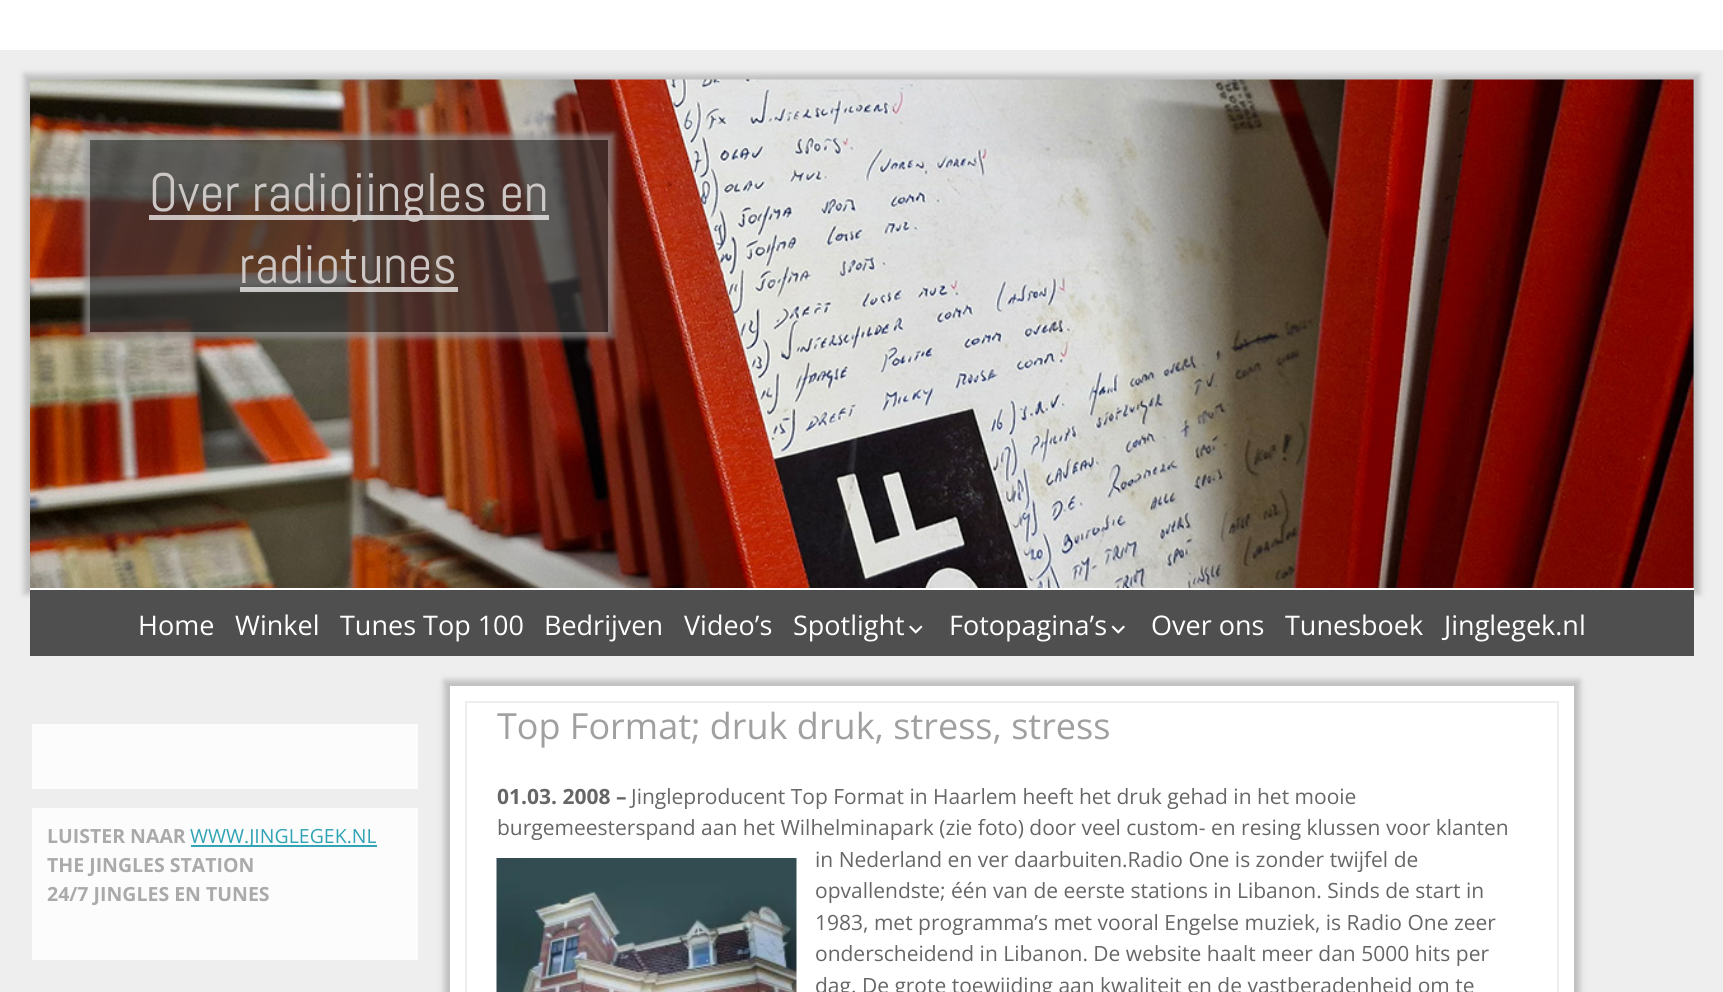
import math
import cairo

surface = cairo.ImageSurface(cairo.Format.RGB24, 1723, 992)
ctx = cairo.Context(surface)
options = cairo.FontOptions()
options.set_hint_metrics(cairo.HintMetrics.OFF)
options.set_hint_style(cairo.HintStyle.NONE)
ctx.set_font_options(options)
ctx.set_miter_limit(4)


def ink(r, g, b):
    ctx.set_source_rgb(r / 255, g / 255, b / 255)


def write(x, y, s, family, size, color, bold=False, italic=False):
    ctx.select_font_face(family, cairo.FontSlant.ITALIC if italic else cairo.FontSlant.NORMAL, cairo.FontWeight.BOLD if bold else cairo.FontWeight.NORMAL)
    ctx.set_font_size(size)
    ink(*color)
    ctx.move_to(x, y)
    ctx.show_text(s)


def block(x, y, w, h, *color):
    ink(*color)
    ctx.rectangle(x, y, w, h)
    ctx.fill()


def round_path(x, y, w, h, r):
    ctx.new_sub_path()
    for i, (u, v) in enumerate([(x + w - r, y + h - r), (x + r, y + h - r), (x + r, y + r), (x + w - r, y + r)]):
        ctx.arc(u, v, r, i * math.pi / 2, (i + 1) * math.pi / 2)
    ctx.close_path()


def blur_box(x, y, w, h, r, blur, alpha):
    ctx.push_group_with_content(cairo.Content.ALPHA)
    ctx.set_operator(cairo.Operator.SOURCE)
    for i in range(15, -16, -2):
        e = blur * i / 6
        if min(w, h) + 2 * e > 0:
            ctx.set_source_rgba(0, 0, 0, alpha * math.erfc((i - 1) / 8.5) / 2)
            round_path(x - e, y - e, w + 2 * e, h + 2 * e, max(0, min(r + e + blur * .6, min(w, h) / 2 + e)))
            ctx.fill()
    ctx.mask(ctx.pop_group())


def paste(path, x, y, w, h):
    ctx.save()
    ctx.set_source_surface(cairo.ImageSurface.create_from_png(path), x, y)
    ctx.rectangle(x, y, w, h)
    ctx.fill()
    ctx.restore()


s1 = dict(family="Abel", size=54, color=(204, 199, 197))
s2 = dict(family="Open Sans", size=27, color=(255, 255, 255))
s3 = dict(family="Open Sans", size=19.5, color=(170, 170, 170), bold=True)
s4 = dict(family="Open Sans", size=19.5, color=(48, 164, 180))
s5 = dict(family="Open Sans", size=36, color=(160, 160, 160))
s6 = dict(family="Open Sans", size=21, color=(102, 102, 102), bold=True)
s7 = dict(family="Open Sans", size=21, color=(102, 102, 102))

ink(238, 238, 238)
ctx.paint()
block(0, 0, 1723, 50, 255, 255, 255)
ink(191, 191, 191)
blur_box(24, 74, 1676, 520, 0, 3, 1)
ctx.set_source_rgba(0.302, 0.592, 0.6, 0.5)
ctx.rectangle(1693, 80, 1, 508)
ctx.fill()
paste("pic1.png", 30, 79, 1664, 509)
ctx.save()
ctx.set_fill_rule(cairo.FillRule.EVEN_ODD)
ctx.new_path()
ctx.move_to(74, 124)
ctx.line_to(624, 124)
ctx.line_to(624, 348)
ctx.line_to(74, 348)
ctx.close_path()
ctx.move_to(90, 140)
ctx.line_to(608, 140)
ctx.line_to(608, 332)
ctx.line_to(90, 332)
ctx.close_path()
ctx.clip()
ink(153, 153, 153)
blur_box(84, 134, 530, 204, 0, 3, 0.7)
ctx.restore()
ctx.set_source_rgba(0.208, 0.208, 0.208, 0.7)
ctx.rectangle(90, 140, 518, 192)
ctx.fill()
ctx.set_source_rgba(1, 1, 1, 0.7)
ctx.rectangle(149, 215, 400, 5)
ctx.fill()
write(149, 211, "Over radiojingles en", **s1)
write(239, 283, "radiotunes", **s1)
ctx.set_source_rgba(1, 1, 1, 0.7)
ctx.rectangle(240, 287, 218, 5)
ctx.fill()
block(30, 590, 1664, 66, 79, 79, 79)
block(30, 588, 1664, 2, 255, 255, 255)
write(138, 635, "Home", **s2)
write(235, 635, "Winkel", **s2)
write(340, 635, "Tunes Top 100", **s2)
write(544, 635, "Bedrijven", **s2)
write(684, 635, "Video’s", **s2)
write(793, 635, "Spotlight", **s2)
paste("pic2.png", 909, 625, 14, 9)
write(949, 635, "Fotopagina’s", **s2)
paste("pic3.png", 1111, 625, 14, 9)
write(1151, 635, "Over ons", **s2)
write(1285, 635, "Tunesboek", **s2)
write(1444, 635, "Jinglegek.nl", **s2)
block(32, 724, 386, 65, 252, 252, 252)
block(32, 808, 386, 152, 252, 252, 252)
write(47, 843, "LUISTER NAAR", **s3)
block(191, 845, 186, 2, 48, 164, 180)
write(190, 843, "WWW.JINGLEGEK.NL", **s4)
write(47, 872, "THE JINGLES STATION", **s3)
write(47, 901, "24/7 JINGLES EN TUNES", **s3)
ink(191, 191, 191)
blur_box(444, 680, 1136, 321, 0, 3, 1)
block(450, 686, 1124, 306, 255, 255, 255)
ctx.rectangle(466, 702, 1092, 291)
ink(238, 238, 238)
ctx.stroke()
write(497, 739, "Top Format; druk druk, stress, stress", **s5)
write(497, 804, "01.03. 2008 –", **s6)
write(631, 804, "Jingleproducent Top Format in Haarlem heeft het druk gehad in het mooie", **s7)
write(497, 835, "burgemeesterspand aan het Wilhelminapark (zie foto) door veel custom- en resing klussen voor klanten", **s7)
paste("pic4.png", 496, 858, 301, 134)
write(815, 867, "in Nederland en ver daarbuiten.Radio One is zonder twijfel de", **s7)
write(815, 898, "opvallendste; één van de eerste stations in Libanon. Sinds de start in", **s7)
write(815, 930, "1983, met programma’s met vooral Engelse muziek, is Radio One zeer", **s7)
write(815, 961, "onderscheidend in Libanon. De website haalt meer dan 5000 hits per", **s7)
write(815, 993, "dag. De grote toewijding aan kwaliteit en de vastberadenheid om te", **s7)
surface.write_to_png("screenshot.png")
